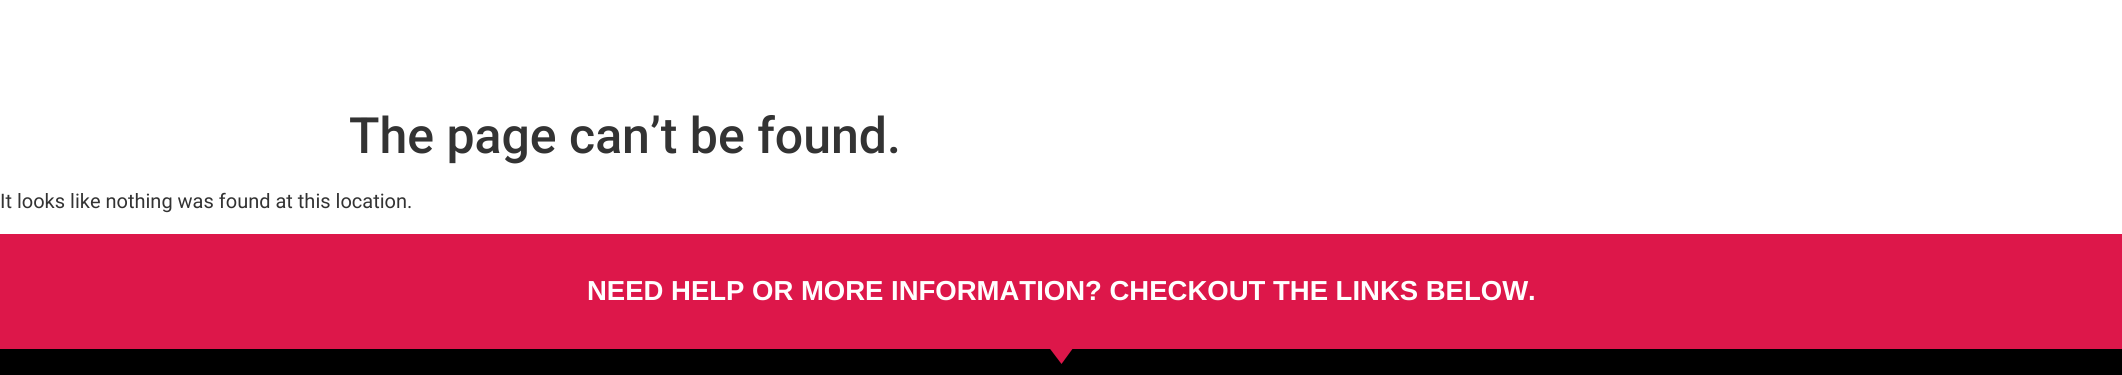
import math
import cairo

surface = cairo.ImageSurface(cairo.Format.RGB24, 2122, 375)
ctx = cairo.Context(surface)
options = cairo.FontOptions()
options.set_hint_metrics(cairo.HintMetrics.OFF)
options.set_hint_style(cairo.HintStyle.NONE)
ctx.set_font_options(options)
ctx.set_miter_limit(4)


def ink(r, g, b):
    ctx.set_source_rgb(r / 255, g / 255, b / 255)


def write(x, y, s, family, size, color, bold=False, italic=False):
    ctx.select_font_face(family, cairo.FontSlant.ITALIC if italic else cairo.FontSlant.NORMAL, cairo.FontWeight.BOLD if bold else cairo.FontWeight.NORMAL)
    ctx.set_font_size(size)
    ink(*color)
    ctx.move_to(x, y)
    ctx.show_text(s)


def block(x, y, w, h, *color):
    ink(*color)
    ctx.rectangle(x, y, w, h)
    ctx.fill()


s1 = dict(family="Roboto Medium", size=50, color=(51, 51, 51))
s2 = dict(family="Roboto", size=20, color=(51, 51, 51))
s3 = dict(family="Liberation Sans", size=27.5, color=(255, 255, 255), bold=True)

ink(255, 255, 255)
ctx.paint()
write(349, 153, "The page can’t be found.", **s1)
write(0, 208, "It looks like nothing was found at this location.", **s2)
block(0, 234, 2122, 115, 221, 23, 74)
write(587, 300, "NEED HELP OR MORE INFORMATION? CHECKOUT THE LINKS BELOW.", **s3)
block(0, 349, 2122, 26, 0, 0, 0)
ctx.save()
ctx.rectangle(633, 348, 856, 16)
ctx.clip()
ink(221, 23, 74)
ctx.new_path()
ctx.move_to(1061.5, 364)
ctx.line_to(1049, 347.5)
ctx.line_to(1073.5, 347.5)
ctx.close_path()
ctx.fill()
ctx.restore()
surface.write_to_png("screenshot.png")
